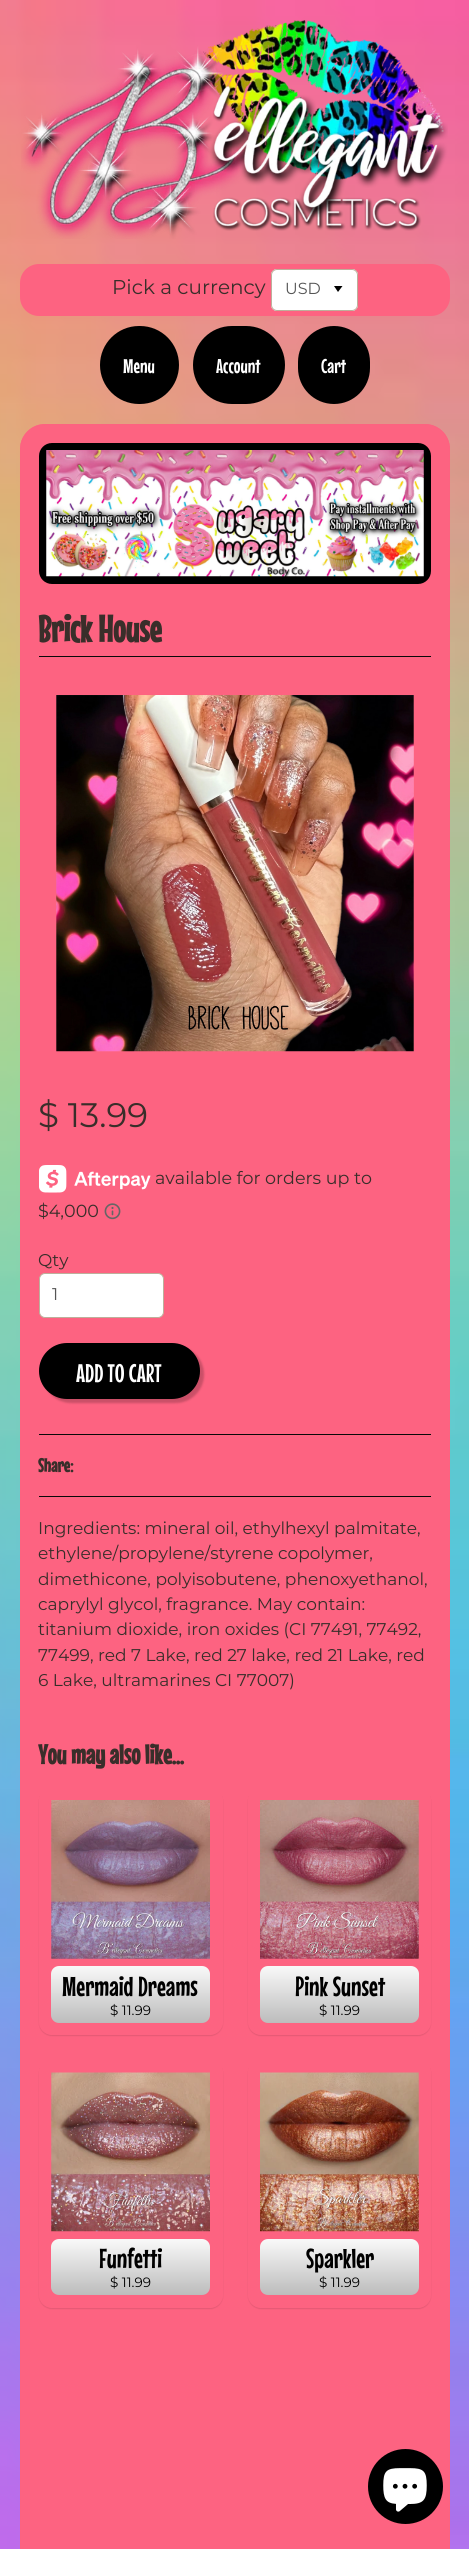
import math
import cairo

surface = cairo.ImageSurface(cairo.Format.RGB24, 469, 2549)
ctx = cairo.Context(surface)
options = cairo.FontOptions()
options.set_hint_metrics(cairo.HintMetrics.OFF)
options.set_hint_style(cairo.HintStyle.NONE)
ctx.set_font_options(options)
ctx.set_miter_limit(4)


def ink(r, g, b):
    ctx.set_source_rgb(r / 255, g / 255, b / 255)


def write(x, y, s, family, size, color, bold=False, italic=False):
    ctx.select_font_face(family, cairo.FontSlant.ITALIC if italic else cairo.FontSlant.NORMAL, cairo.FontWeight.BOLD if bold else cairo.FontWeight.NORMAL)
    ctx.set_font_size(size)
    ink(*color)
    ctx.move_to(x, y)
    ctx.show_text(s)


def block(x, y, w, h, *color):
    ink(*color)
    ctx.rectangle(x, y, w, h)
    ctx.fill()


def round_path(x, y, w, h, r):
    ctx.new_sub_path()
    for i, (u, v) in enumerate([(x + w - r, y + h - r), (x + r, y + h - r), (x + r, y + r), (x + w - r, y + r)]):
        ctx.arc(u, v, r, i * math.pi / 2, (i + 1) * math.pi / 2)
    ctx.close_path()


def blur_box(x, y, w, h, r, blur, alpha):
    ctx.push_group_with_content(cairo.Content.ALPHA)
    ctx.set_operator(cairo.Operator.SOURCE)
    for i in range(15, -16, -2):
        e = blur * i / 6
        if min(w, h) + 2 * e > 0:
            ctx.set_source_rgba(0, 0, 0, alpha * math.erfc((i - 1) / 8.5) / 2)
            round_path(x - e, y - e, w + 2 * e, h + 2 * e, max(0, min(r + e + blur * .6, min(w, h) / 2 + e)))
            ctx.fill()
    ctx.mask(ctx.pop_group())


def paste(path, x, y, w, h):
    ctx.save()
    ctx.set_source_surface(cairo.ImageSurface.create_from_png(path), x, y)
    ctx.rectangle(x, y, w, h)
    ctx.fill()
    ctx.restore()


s1 = dict(family="Montserrat", size=20, color=(57, 46, 42))
s2 = dict(family="Montserrat", size=16, color=(85, 85, 85))
s3 = dict(family="Mouse Memoirs", size=20, color=(255, 255, 255))
s4 = dict(family="Mouse Memoirs", size=37.5, color=(57, 46, 42), bold=True)
s5 = dict(family="Montserrat", size=34, color=(57, 46, 42))
s6 = dict(family="Montserrat", size=17.5, color=(57, 46, 42))
s7 = dict(family="Montserrat", size=17, color=(57, 46, 42))
s8 = dict(family="Montserrat", size=17, color=(85, 85, 85))
s9 = dict(family="Mouse Memoirs", size=25.5, color=(255, 255, 255))
s10 = dict(family="Mouse Memoirs", size=19, color=(57, 46, 42), bold=True)
s11 = dict(family="Mouse Memoirs", size=27.25, color=(57, 46, 42), bold=True)
s12 = dict(family="Mouse Memoirs", size=27.5, color=(0, 0, 0))
s13 = dict(family="Montserrat", size=13.5, color=(0, 0, 0))

ink(255, 255, 255)
ctx.paint()
paste("pic1.png", 0, 0, 469, 2549)
paste("pic2.png", 21, 20, 427, 219)
ink(253, 99, 129)
round_path(20, 264, 430, 52, 19)
ctx.fill()
write(112, 294, "Pick a currency", **s1)
ink(255, 255, 255)
round_path(271, 269, 87, 42, 6)
ctx.fill()
ink(0, 0, 0)
ctx.new_path()
ctx.move_to(334, 286)
ctx.line_to(338, 292)
ctx.line_to(342.5, 286)
ctx.close_path()
ctx.fill()
round_path(271.5, 269.5, 86, 41, 5.5)
ink(189, 175, 155)
ctx.set_line_width(1)
ctx.stroke()
write(285, 294, "USD", **s2)
ink(0, 0, 0)
round_path(102, 328, 75, 74, 37)
ctx.fill_preserve()
ctx.set_line_width(4)
ctx.stroke()
write(123, 373, "Menu", **s3)
ink(0, 0, 0)
round_path(195, 328, 88, 74, 37)
ctx.fill_preserve()
ctx.stroke()
write(216, 373, "Account", **s3)
ink(0, 0, 0)
round_path(300, 328, 68, 74, 34)
ctx.fill_preserve()
ctx.stroke()
write(321, 373, "Cart", **s3)
ink(253, 99, 129)
round_path(20, 424, 430, 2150, 25)
ctx.fill()
round_path(20.5, 424.5, 429, 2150, 24.5)
ctx.set_source_rgba(0.992, 0.388, 0.506, 0.7)
ctx.set_line_width(1)
ctx.stroke()
ink(0, 0, 0)
round_path(39, 443, 392, 141, 13)
ctx.fill()
paste("pic3.png", 46, 450, 378, 127)
block(39, 656, 392, 1, 9, 9, 9)
write(38, 642, "Brick House", **s4)
paste("pic4.png", 56, 695, 358, 357)
write(38, 1127, "$ 13.99", **s5)
paste("pic5.png", 39, 1165, 112, 28)
write(155, 1184, "available for orders up to", **s6)
write(38, 1217, "$4,000", **s6)
paste("pic6.png", 104, 1203, 17, 17)
write(38, 1266, "Qty", **s7)
ink(255, 255, 255)
round_path(39.5, 1273.5, 124, 44, 5.5)
ctx.fill_preserve()
ink(189, 175, 155)
ctx.stroke()
write(52, 1300, "1", **s8)
ink(0, 0, 0)
blur_box(43, 1346, 161, 57, 28.5, 1, 0.2)
ink(0, 0, 0)
round_path(39, 1343, 161, 56, 28)
ctx.fill()
write(76, 1382, "ADD TO CART", **s9)
block(39, 1434, 392, 1, 9, 9, 9)
write(38, 1472, "Share:", **s10)
block(39, 1496, 392, 1, 9, 9, 9)
write(38, 1534, "Ingredients: mineral oil, ethylhexyl palmitate,", **s7)
write(38, 1559, "ethylene/propylene/styrene copolymer,", **s7)
write(38, 1585, "dimethicone, polyisobutene, phenoxyethanol,", **s7)
write(38, 1610, "caprylyl glycol, fragrance. May contain:", **s7)
write(38, 1635, "titanium dioxide, iron oxides (CI 77491, 77492,", **s7)
write(38, 1661, "77499, red 7 Lake, red 27 lake, red 21 Lake, red", **s7)
write(38, 1686, "6 Lake, ultramarines CI 77007)", **s7)
write(38, 1764, "You may also like...", **s11)
ctx.save()
ctx.set_fill_rule(cairo.FillRule.EVEN_ODD)
ctx.new_path()
ctx.move_to(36, 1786)
ctx.line_to(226, 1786)
ctx.line_to(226, 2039)
ctx.line_to(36, 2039)
ctx.close_path()
ctx.move_to(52, 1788)
ctx.line_to(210, 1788)
ctx.curve_to(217, 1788, 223, 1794, 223, 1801)
ctx.line_to(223, 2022)
ctx.curve_to(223, 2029, 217, 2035, 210, 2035)
ctx.line_to(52, 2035)
ctx.curve_to(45, 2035, 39, 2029, 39, 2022)
ctx.line_to(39, 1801)
ctx.curve_to(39, 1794, 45, 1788, 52, 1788)
ctx.close_path()
ctx.clip()
ink(0, 0, 0)
blur_box(39, 1789, 184, 247, 13, 0.5, 0.1)
ctx.restore()
paste("pic7.png", 51, 1800, 159, 159)
gradient = cairo.LinearGradient(131, 1966, 131, 2023)
gradient.add_color_stop_rgba(0, 0.976, 0.976, 0.976, 1)
gradient.add_color_stop_rgba(1, 0.737, 0.737, 0.737, 1)
ctx.set_source(gradient)
round_path(51, 1966, 159, 57, 8)
ctx.fill()
write(62, 1996, "Mermaid Dreams", **s12)
write(110, 2015, "$ 11.99", **s13)
ctx.save()
ctx.set_fill_rule(cairo.FillRule.EVEN_ODD)
ctx.new_path()
ctx.move_to(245, 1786)
ctx.line_to(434, 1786)
ctx.line_to(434, 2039)
ctx.line_to(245, 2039)
ctx.close_path()
ctx.move_to(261, 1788)
ctx.line_to(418, 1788)
ctx.curve_to(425, 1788, 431, 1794, 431, 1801)
ctx.line_to(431, 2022)
ctx.curve_to(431, 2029, 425, 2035, 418, 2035)
ctx.line_to(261, 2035)
ctx.curve_to(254, 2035, 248, 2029, 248, 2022)
ctx.line_to(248, 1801)
ctx.curve_to(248, 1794, 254, 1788, 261, 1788)
ctx.close_path()
ctx.clip()
ink(0, 0, 0)
blur_box(248, 1789, 183, 247, 13, 0.5, 0.1)
ctx.restore()
paste("pic8.png", 260, 1800, 159, 159)
gradient = cairo.LinearGradient(339, 1966, 339, 2023)
gradient.add_color_stop_rgba(0, 0.976, 0.976, 0.976, 1)
gradient.add_color_stop_rgba(1, 0.737, 0.737, 0.737, 1)
ctx.set_source(gradient)
round_path(260, 1966, 159, 57, 8)
ctx.fill()
write(295, 1996, "Pink Sunset", **s12)
write(319, 2015, "$ 11.99", **s13)
ctx.save()
ctx.set_fill_rule(cairo.FillRule.EVEN_ODD)
ctx.new_path()
ctx.move_to(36, 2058)
ctx.line_to(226, 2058)
ctx.line_to(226, 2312)
ctx.line_to(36, 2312)
ctx.close_path()
ctx.move_to(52, 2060)
ctx.line_to(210, 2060)
ctx.curve_to(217, 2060, 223, 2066, 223, 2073)
ctx.line_to(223, 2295)
ctx.curve_to(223, 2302, 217, 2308, 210, 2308)
ctx.line_to(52, 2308)
ctx.curve_to(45, 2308, 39, 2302, 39, 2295)
ctx.line_to(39, 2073)
ctx.curve_to(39, 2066, 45, 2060, 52, 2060)
ctx.close_path()
ctx.clip()
ink(0, 0, 0)
blur_box(39, 2061, 184, 248, 13, 0.5, 0.1)
ctx.restore()
paste("pic9.png", 51, 2072, 159, 160)
gradient = cairo.LinearGradient(131, 2239, 131, 2295)
gradient.add_color_stop_rgba(0, 0.976, 0.976, 0.976, 1)
gradient.add_color_stop_rgba(1, 0.737, 0.737, 0.737, 1)
ctx.set_source(gradient)
round_path(51, 2239, 159, 56, 8)
ctx.fill()
write(99, 2268, "Funfetti", **s12)
write(110, 2287, "$ 11.99", **s13)
ctx.save()
ctx.set_fill_rule(cairo.FillRule.EVEN_ODD)
ctx.new_path()
ctx.move_to(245, 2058)
ctx.line_to(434, 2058)
ctx.line_to(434, 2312)
ctx.line_to(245, 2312)
ctx.close_path()
ctx.move_to(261, 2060)
ctx.line_to(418, 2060)
ctx.curve_to(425, 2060, 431, 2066, 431, 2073)
ctx.line_to(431, 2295)
ctx.curve_to(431, 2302, 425, 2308, 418, 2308)
ctx.line_to(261, 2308)
ctx.curve_to(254, 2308, 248, 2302, 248, 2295)
ctx.line_to(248, 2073)
ctx.curve_to(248, 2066, 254, 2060, 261, 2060)
ctx.close_path()
ctx.clip()
ink(0, 0, 0)
blur_box(248, 2061, 183, 248, 13, 0.5, 0.1)
ctx.restore()
paste("pic10.png", 260, 2072, 159, 160)
gradient = cairo.LinearGradient(339, 2239, 339, 2295)
gradient.add_color_stop_rgba(0, 0.976, 0.976, 0.976, 1)
gradient.add_color_stop_rgba(1, 0.737, 0.737, 0.737, 1)
ctx.set_source(gradient)
round_path(260, 2239, 159, 56, 8)
ctx.fill()
write(306, 2268, "Sparkler", **s12)
write(319, 2287, "$ 11.99", **s13)
ctx.new_path()
ctx.arc(405.5, 2486.5, 37.5, 0, 2 * math.pi)
ctx.fill()
paste("pic11.png", 383, 2468, 44, 44)
surface.write_to_png("screenshot.png")
